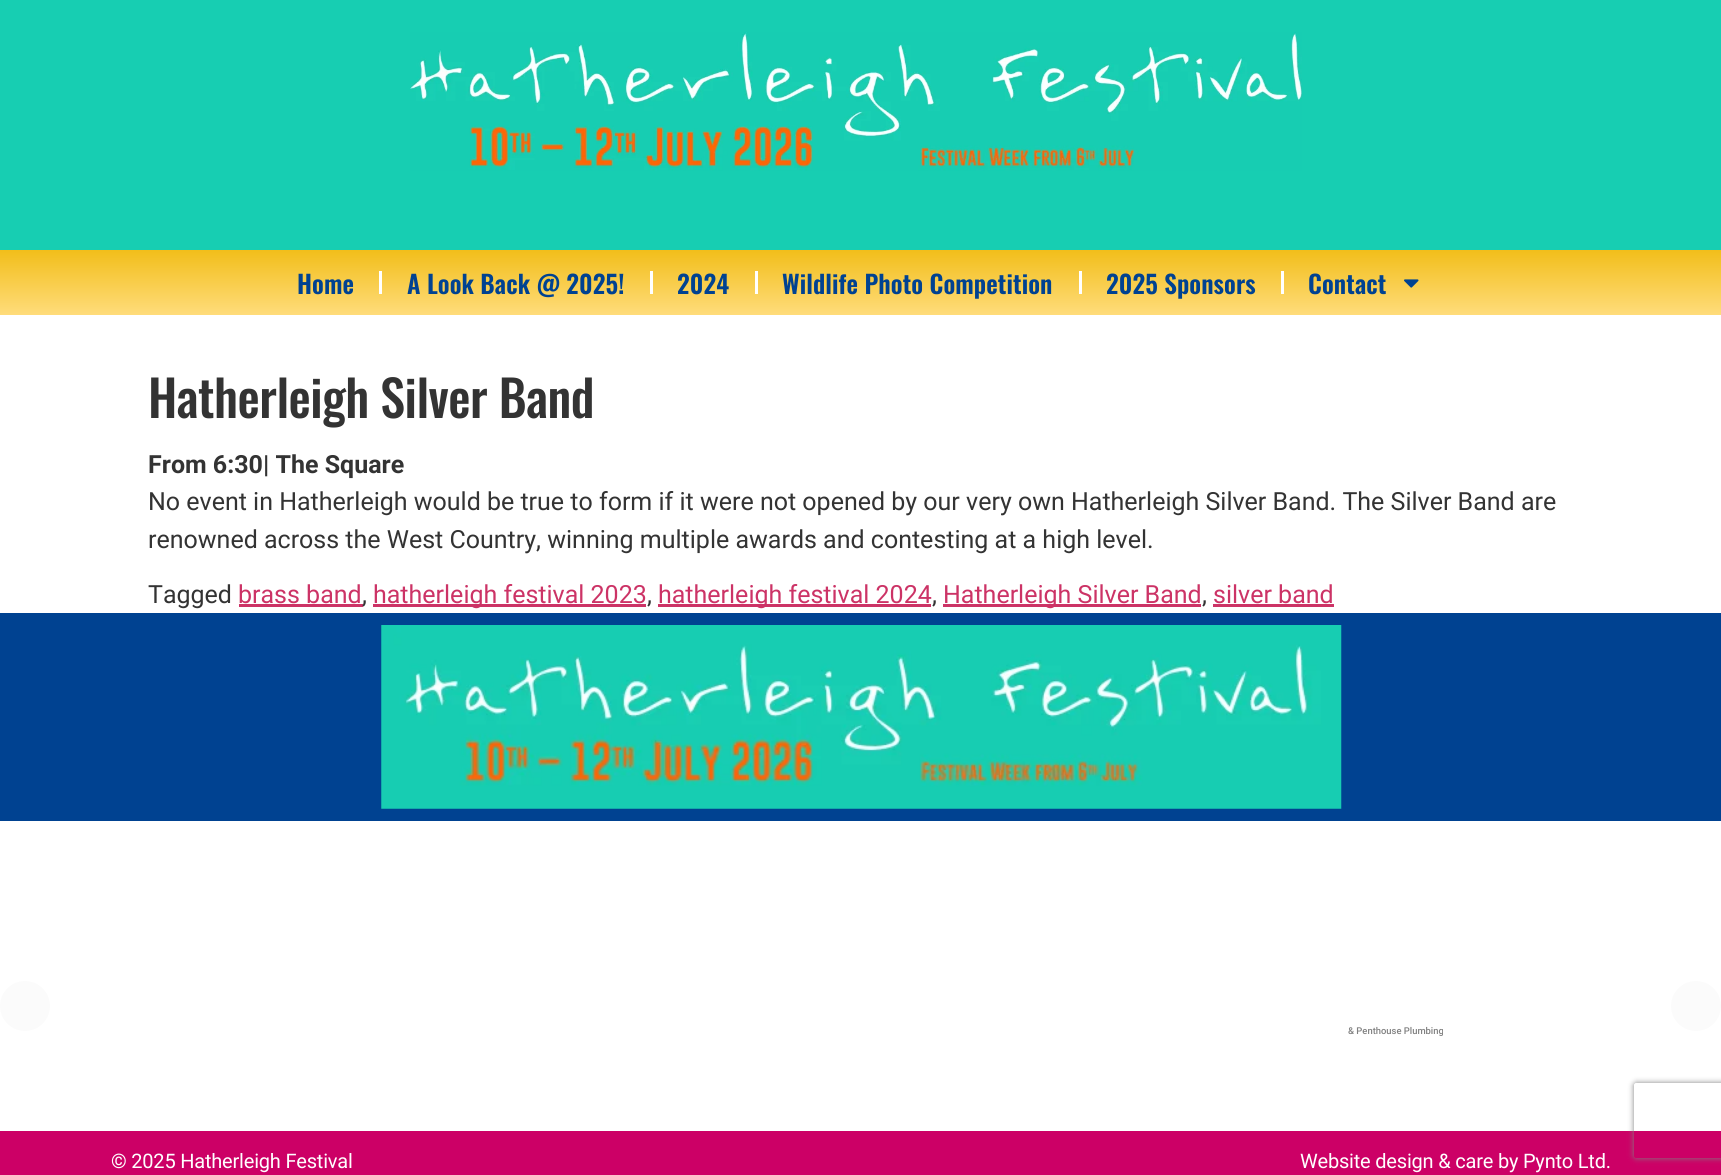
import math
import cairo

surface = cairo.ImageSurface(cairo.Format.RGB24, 1721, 1175)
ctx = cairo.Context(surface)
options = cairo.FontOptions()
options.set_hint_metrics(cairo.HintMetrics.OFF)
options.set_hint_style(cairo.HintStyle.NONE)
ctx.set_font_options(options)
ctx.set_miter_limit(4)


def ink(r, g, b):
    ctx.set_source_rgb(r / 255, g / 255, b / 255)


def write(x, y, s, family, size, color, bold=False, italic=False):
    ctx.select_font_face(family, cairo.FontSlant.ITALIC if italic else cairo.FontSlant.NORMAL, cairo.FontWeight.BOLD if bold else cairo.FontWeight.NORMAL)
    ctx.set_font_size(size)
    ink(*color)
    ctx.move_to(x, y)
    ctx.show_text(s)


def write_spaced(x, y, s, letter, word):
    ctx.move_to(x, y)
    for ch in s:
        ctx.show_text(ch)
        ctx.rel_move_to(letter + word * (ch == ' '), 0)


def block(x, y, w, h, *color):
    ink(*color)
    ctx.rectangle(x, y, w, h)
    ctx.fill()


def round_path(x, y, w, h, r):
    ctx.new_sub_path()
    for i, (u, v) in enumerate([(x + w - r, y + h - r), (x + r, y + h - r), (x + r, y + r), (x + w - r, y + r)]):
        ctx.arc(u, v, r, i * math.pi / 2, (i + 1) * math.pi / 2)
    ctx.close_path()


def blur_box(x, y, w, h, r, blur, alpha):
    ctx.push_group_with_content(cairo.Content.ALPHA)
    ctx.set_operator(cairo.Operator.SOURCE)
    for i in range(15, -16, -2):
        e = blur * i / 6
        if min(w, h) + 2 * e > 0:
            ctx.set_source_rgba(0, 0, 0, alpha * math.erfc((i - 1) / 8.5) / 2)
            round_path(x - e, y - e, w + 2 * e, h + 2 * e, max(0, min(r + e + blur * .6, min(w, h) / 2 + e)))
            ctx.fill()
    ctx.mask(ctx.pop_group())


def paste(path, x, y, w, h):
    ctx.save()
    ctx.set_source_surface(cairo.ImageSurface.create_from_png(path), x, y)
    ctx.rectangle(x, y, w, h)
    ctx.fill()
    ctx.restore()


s1 = dict(family="Roboto", size=25, color=(51, 51, 51), bold=True)
s2 = dict(family="Roboto", size=25, color=(51, 51, 51))
s3 = dict(family="Roboto", size=25, color=(204, 51, 102))
s4 = dict(family="Roboto Medium", size=9.4, color=(128, 128, 128))

ink(255, 255, 255)
ctx.paint()
block(0, 0, 1721, 250, 23, 206, 178)
paste("pic1.png", 410, 32, 892, 139)
gradient = cairo.LinearGradient(861, 250, 861, 315)
gradient.add_color_stop_rgba(0, 0.949, 0.745, 0.102, 1)
gradient.add_color_stop_rgba(1, 1, 0.863, 0.482, 1)
ctx.set_source(gradient)
ctx.rectangle(0, 250, 1721, 65)
ctx.fill()
ctx.select_font_face("Oswald SemiBold")
ctx.set_font_size(25)
ink(0, 66, 145)
write_spaced(297, 294, "Home", 0.1, 0)
block(379, 271, 3, 23, 255, 255, 255)
ink(0, 66, 145)
write_spaced(407, 294, "A Look Back @ 2025!", 0.1, 0)
block(650, 271, 3, 23, 255, 255, 255)
ink(0, 66, 145)
write_spaced(677, 294, "2024", 0.1, 0)
block(755, 271, 3, 23, 255, 255, 255)
ink(0, 66, 145)
write_spaced(782, 294, "Wildlife Photo Competition", 0.1, 0)
block(1079, 271, 3, 23, 255, 255, 255)
ink(0, 66, 145)
write_spaced(1106, 294, "2025 Sponsors", 0.1, 0)
block(1281, 271, 3, 23, 255, 255, 255)
ink(0, 66, 145)
write_spaced(1308, 294, "Contact", 0.1, 0)
paste("pic2.png", 1404, 279, 15, 9)
ctx.select_font_face("Oswald Medium")
ctx.set_font_size(50)
ink(51, 51, 51)
write_spaced(148, 418, "Hatherleigh Silver Band", -0.5, 0)
write(148, 473, "From 6:30| The Square", **s1)
write(148, 510, "No event in Hatherleigh would be true to form if it were not opened by our very own Hatherleigh Silver Band. The Silver Band are", **s2)
write(148, 548, "renowned across the West Country, winning multiple awards and contesting at a high level.", **s2)
write(148, 603, "Tagged", **s2)
write(238, 603, "brass band", **s3)
block(239, 604, 124, 3, 204, 51, 102)
write(362, 603, ",", **s2)
block(373, 604, 273, 3, 204, 51, 102)
write(373, 603, "hatherleigh festival 2023", **s3)
write(647, 603, ",", **s2)
block(658, 604, 273, 3, 204, 51, 102)
write(658, 603, "hatherleigh festival 2024", **s3)
write(932, 603, ",", **s2)
block(943, 604, 258, 3, 204, 51, 102)
write(943, 603, "Hatherleigh Silver Band", **s3)
write(1202, 603, ",", **s2)
block(1213, 604, 121, 3, 204, 51, 102)
write(1213, 603, "silver band", **s3)
block(0, 613, 1721, 208, 0, 66, 145)
paste("pic3.png", 381, 625, 961, 184)
ink(251, 251, 251)
ctx.arc(25, 1006, 25, 0, 2 * math.pi)
ctx.fill()
write(1348, 1034, "& Penthouse Plumbing", **s4)
ink(251, 251, 251)
ctx.new_path()
ctx.arc(1696, 1006, 25, 0, 2 * math.pi)
ctx.fill()
block(0, 1131, 1721, 44, 204, 0, 102)
ctx.select_font_face("Roboto")
ctx.set_font_size(20)
ink(255, 255, 255)
write_spaced(111, 1168, "© 2025 Hatherleigh Festival", -0.2, 0)
write_spaced(1300, 1168, "Website design & care by Pynto Ltd.", -0.2, 0)
ctx.save()
ctx.set_fill_rule(cairo.FillRule.EVEN_ODD)
ctx.new_path()
ctx.move_to(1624, 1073)
ctx.line_to(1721, 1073)
ctx.line_to(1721, 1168)
ctx.line_to(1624, 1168)
ctx.close_path()
ctx.move_to(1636.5, 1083)
ctx.line_to(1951.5, 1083)
ctx.curve_to(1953, 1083, 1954, 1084, 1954, 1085.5)
ctx.line_to(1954, 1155.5)
ctx.curve_to(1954, 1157, 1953, 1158, 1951.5, 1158)
ctx.line_to(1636.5, 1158)
ctx.curve_to(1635, 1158, 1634, 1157, 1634, 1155.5)
ctx.line_to(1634, 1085.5)
ctx.curve_to(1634, 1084, 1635, 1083, 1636.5, 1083)
ctx.close_path()
ctx.clip()
ink(128, 128, 128)
blur_box(1634, 1083, 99, 75, 2.5, 3, 1)
ctx.restore()
surface.write_to_png("screenshot.png")
